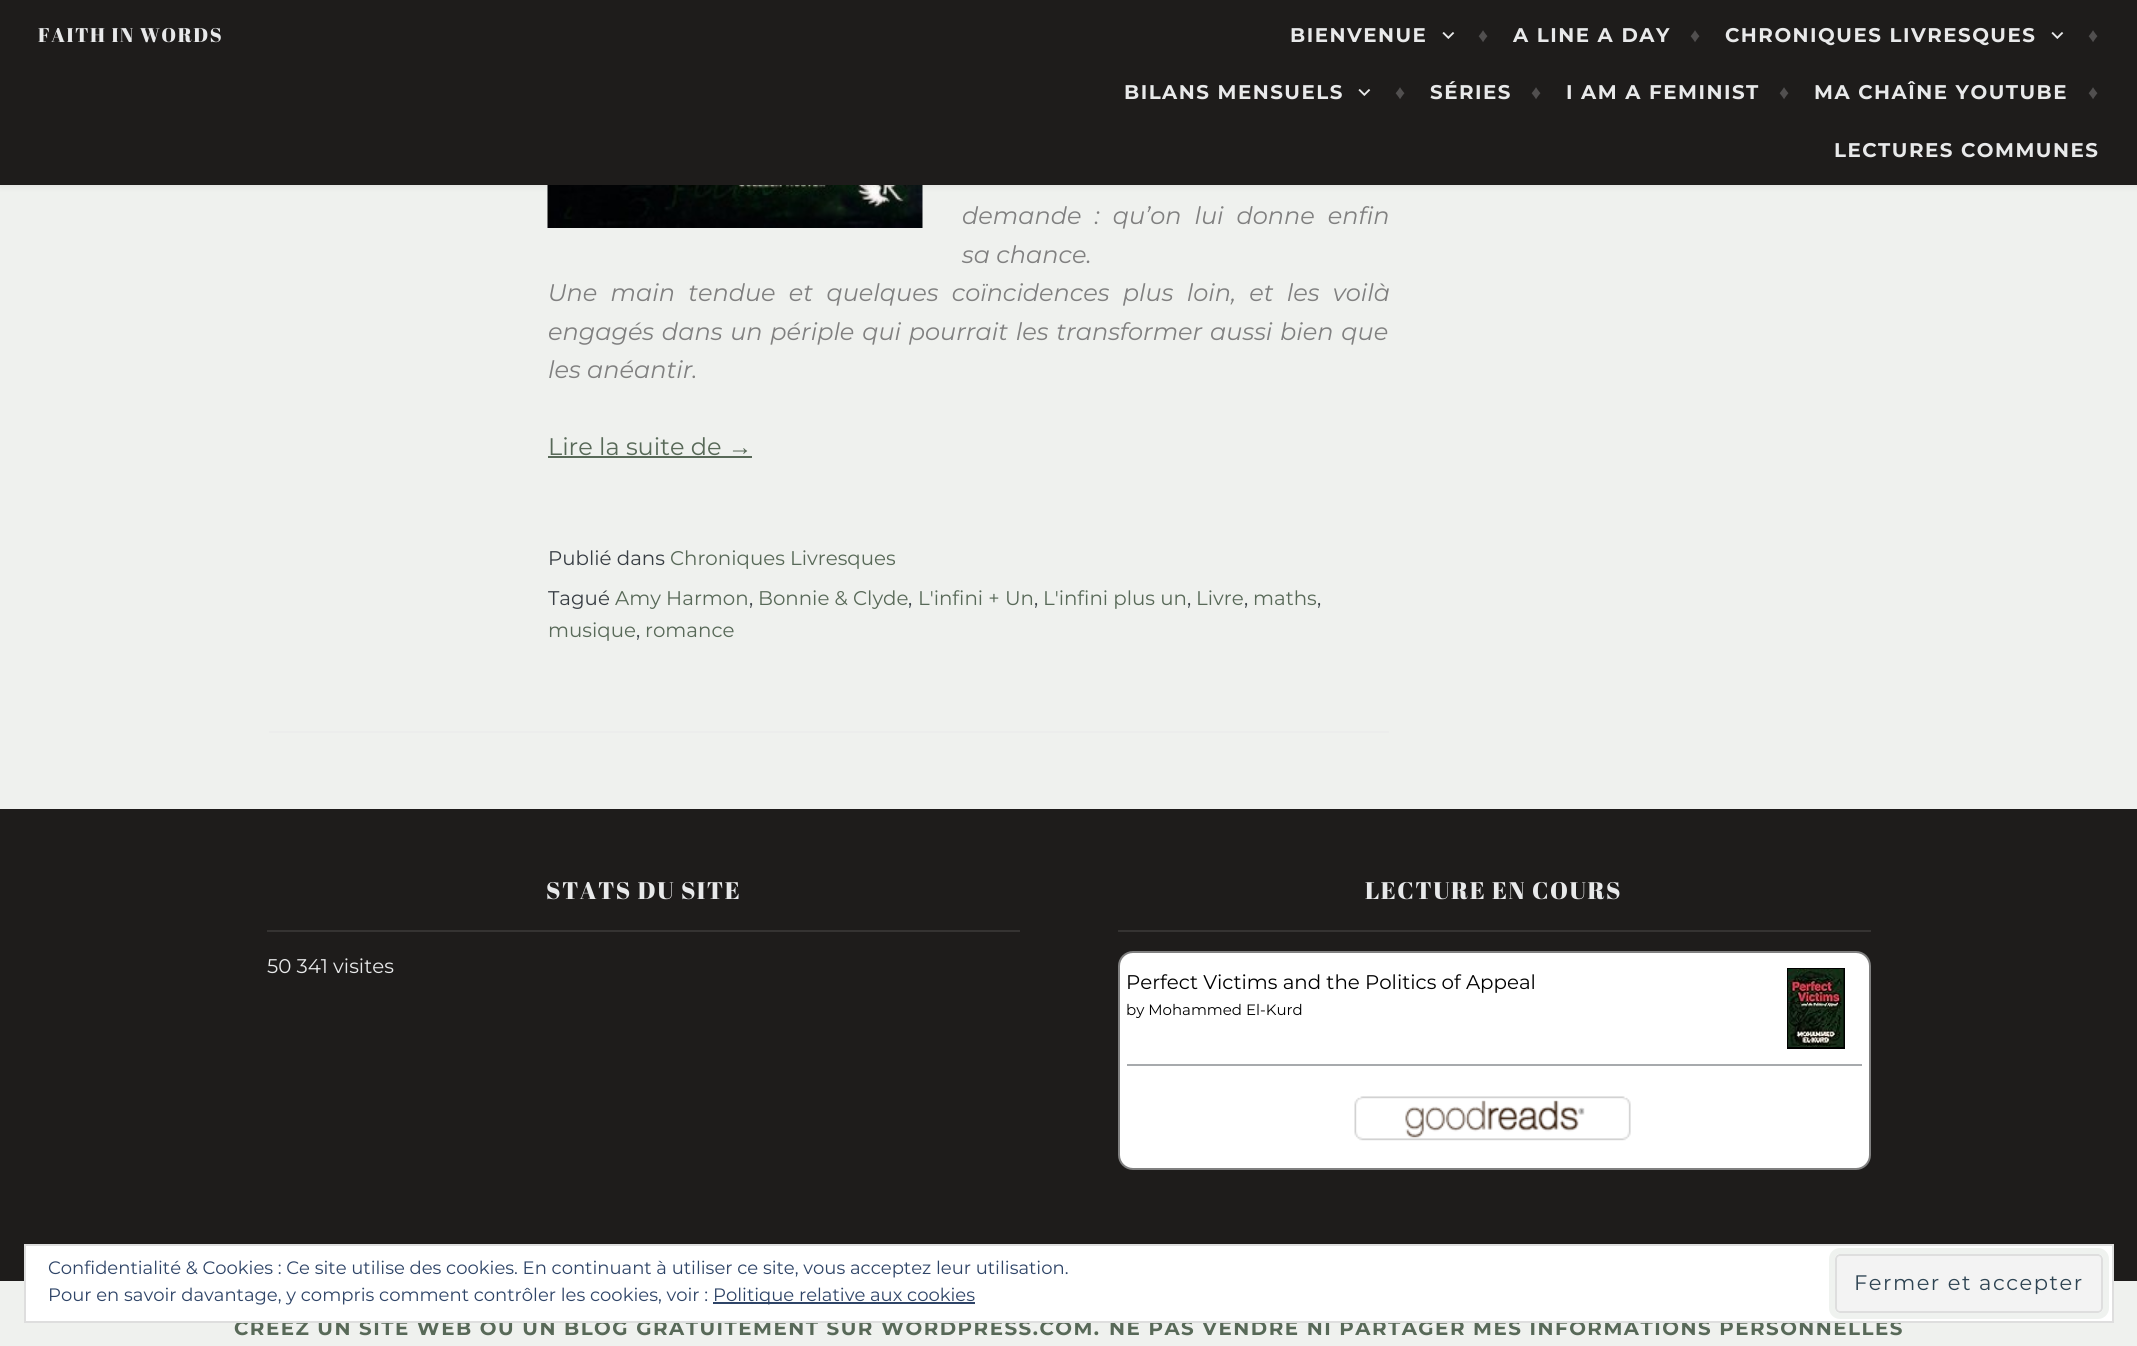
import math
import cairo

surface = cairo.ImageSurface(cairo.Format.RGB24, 2137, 1346)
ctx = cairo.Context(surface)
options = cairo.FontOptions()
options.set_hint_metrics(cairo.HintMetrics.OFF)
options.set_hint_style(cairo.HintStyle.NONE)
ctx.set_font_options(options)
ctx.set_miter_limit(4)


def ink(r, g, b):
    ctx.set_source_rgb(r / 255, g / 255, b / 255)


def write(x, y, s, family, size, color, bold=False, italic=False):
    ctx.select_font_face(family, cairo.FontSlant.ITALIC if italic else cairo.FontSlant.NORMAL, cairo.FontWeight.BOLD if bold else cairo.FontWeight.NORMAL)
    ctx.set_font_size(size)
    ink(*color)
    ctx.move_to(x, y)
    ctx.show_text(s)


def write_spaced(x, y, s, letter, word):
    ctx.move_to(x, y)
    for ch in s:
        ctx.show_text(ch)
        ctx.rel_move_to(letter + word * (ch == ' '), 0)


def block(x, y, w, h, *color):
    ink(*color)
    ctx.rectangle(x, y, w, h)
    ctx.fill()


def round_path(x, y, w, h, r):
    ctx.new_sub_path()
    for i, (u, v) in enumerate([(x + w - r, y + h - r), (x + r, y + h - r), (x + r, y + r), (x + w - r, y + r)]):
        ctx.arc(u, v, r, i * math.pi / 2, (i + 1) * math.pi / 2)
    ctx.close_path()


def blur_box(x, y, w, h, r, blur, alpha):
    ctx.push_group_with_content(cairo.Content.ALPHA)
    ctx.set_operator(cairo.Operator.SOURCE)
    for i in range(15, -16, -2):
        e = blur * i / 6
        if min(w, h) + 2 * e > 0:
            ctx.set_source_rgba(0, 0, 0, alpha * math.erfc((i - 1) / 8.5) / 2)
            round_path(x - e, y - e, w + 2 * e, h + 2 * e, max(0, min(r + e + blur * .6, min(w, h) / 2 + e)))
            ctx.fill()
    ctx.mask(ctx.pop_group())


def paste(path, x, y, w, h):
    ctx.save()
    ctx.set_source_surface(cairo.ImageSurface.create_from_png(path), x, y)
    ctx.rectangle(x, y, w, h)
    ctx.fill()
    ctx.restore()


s1 = dict(family="Montserrat", size=24, color=(128, 128, 128), italic=True)
s2 = dict(family="Montserrat", size=24, color=(88, 105, 88))
s3 = dict(family="Liberation Sans", size=24, color=(88, 105, 88))
s4 = dict(family="Montserrat", size=19.8, color=(56, 62, 68))
s5 = dict(family="Montserrat", size=19.8, color=(88, 105, 88))
s6 = dict(family="Montserrat", size=19.8, color=(232, 233, 234))
s7 = dict(family="Montserrat", size=19.8, color=(0, 0, 0))
s8 = dict(family="Montserrat", size=15, color=(0, 0, 0))
s9 = dict(family="Montserrat", size=18, color=(46, 68, 103))

ink(239, 241, 238)
ctx.paint()
paste("pic2.png", 547, 185, 376, 43)
ink(0, 0, 0)
blur_box(0, 0, 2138, 185, 0, 4, 0.1)
block(0, 0, 2137, 185, 30, 28, 27)
ctx.select_font_face("Abril Fatface")
ctx.set_font_size(19.8)
ink(232, 233, 234)
write_spaced(38, 42, "FAITH IN WORDS", 1.5, 0)
ctx.select_font_face("Montserrat", cairo.FontSlant.NORMAL, cairo.FontWeight.BOLD)
write_spaced(1290, 42, "BIENVENUE", 1.5, 0)
paste("pic1.png", 1442, 32, 13, 7)
ctx.select_font_face("Liberation Sans", cairo.FontSlant.NORMAL, cairo.FontWeight.BOLD)
ink(81, 79, 79)
write_spaced(1478, 42, "♦", 1.5, 0)
ctx.select_font_face("Montserrat", cairo.FontSlant.NORMAL, cairo.FontWeight.BOLD)
ink(232, 233, 234)
write_spaced(1513, 42, "A LINE A DAY", 1.5, 0)
ctx.select_font_face("Liberation Sans", cairo.FontSlant.NORMAL, cairo.FontWeight.BOLD)
ink(81, 79, 79)
write_spaced(1690, 42, "♦", 1.5, 0)
ctx.select_font_face("Montserrat", cairo.FontSlant.NORMAL, cairo.FontWeight.BOLD)
ink(232, 233, 234)
write_spaced(1725, 42, "CHRONIQUES LIVRESQUES", 1.5, 0)
paste("pic1.png", 2051, 32, 13, 7)
ctx.select_font_face("Liberation Sans", cairo.FontSlant.NORMAL, cairo.FontWeight.BOLD)
ink(81, 79, 79)
write_spaced(2088, 42, "♦", 1.5, 0)
ctx.select_font_face("Montserrat", cairo.FontSlant.NORMAL, cairo.FontWeight.BOLD)
ink(232, 233, 234)
write_spaced(1124, 99, "BILANS MENSUELS", 1.5, 0)
paste("pic1.png", 1358, 89, 13, 7)
ctx.select_font_face("Liberation Sans", cairo.FontSlant.NORMAL, cairo.FontWeight.BOLD)
ink(81, 79, 79)
write_spaced(1395, 99, "♦", 1.5, 0)
ctx.select_font_face("Montserrat", cairo.FontSlant.NORMAL, cairo.FontWeight.BOLD)
ink(232, 233, 234)
write_spaced(1430, 99, "SÉRIES", 1.5, 0)
ctx.select_font_face("Liberation Sans", cairo.FontSlant.NORMAL, cairo.FontWeight.BOLD)
ink(81, 79, 79)
write_spaced(1531, 99, "♦", 1.5, 0)
ctx.select_font_face("Montserrat", cairo.FontSlant.NORMAL, cairo.FontWeight.BOLD)
ink(232, 233, 234)
write_spaced(1566, 99, "I AM A FEMINIST", 1.5, 0)
ctx.select_font_face("Liberation Sans", cairo.FontSlant.NORMAL, cairo.FontWeight.BOLD)
ink(81, 79, 79)
write_spaced(1779, 99, "♦", 1.5, 0)
ctx.select_font_face("Montserrat", cairo.FontSlant.NORMAL, cairo.FontWeight.BOLD)
ink(232, 233, 234)
write_spaced(1814, 99, "MA CHAÎNE YOUTUBE", 1.5, 0)
ctx.select_font_face("Liberation Sans", cairo.FontSlant.NORMAL, cairo.FontWeight.BOLD)
ink(81, 79, 79)
write_spaced(2088, 99, "♦", 1.5, 0)
ctx.select_font_face("Montserrat", cairo.FontSlant.NORMAL, cairo.FontWeight.BOLD)
ink(232, 233, 234)
write_spaced(1834, 157, "LECTURES COMMUNES", 1.5, 0)
block(269, 731, 1120, 2, 236, 237, 236)
ctx.select_font_face("Montserrat", cairo.FontSlant.ITALIC)
ctx.set_font_size(24)
ink(128, 128, 128)
write_spaced(962, 224, "demande : qu’on lui donne enfin", 0, 6.75)
write(962, 263, "sa chance.", **s1)
write_spaced(548, 301, "Une main tendue et quelques coïncidences plus loin, et les voilà", 0, 7)
write_spaced(548, 340, "engagés dans un périple qui pourrait les transformer aussi bien que", 0, 1.5)
write(548, 378, "les anéantir.", **s1)
write(548, 455, "Lire la suite de", **s2)
write(728, 455, "→", **s3)
block(548, 456, 204, 2, 88, 105, 88)
write(548, 565, "Publié dans", **s4)
write(670, 565, "Chroniques Livresques", **s5)
write(548, 605, "Tagué", **s4)
write(615, 605, "Amy Harmon", **s5)
write(749, 605, ",", **s4)
write(758, 605, "Bonnie & Clyde", **s5)
write(908, 605, ",", **s4)
write(918, 605, "L'infini + Un", **s5)
write(1034, 605, ",", **s4)
write(1043, 605, "L'infini plus un", **s5)
write(1187, 605, ",", **s4)
write(1196, 605, "Livre", **s5)
write(1244, 605, ",", **s4)
write(1253, 605, "maths", **s5)
write(1317, 605, ",", **s4)
write(548, 637, "musique", **s5)
write(636, 637, ",", **s4)
write(645, 637, "romance", **s5)
block(0, 809, 2137, 472, 30, 28, 27)
block(267, 930, 753, 2, 53, 51, 50)
ctx.select_font_face("Abril Fatface")
ctx.set_font_size(24)
ink(232, 233, 234)
write_spaced(546, 899, "STATS DU SITE", 1.5, 0)
write(267, 973, "50 341 visites", **s6)
block(1118, 930, 753, 2, 53, 51, 50)
ctx.select_font_face("Abril Fatface")
ctx.set_font_size(24)
ink(232, 233, 234)
write_spaced(1365, 899, "LECTURE EN COURS", 1.5, 0)
ink(255, 255, 255)
round_path(1119, 952, 751, 217, 14)
ctx.fill_preserve()
ink(128, 128, 128)
ctx.stroke()
block(1127, 1064, 735, 2, 167, 170, 173)
write(1126, 989, "Perfect Victims and the Politics of Appeal", **s7)
ctx.rectangle(1788, 969, 56, 79)
ctx.stroke()
paste("pic3.png", 1788, 969, 56, 78)
write(1126, 1015, "by Mohammed El-Kurd", **s8)
paste("pic4.png", 1354, 1096, 277, 45)
ctx.select_font_face("Montserrat", cairo.FontSlant.NORMAL, cairo.FontWeight.BOLD)
ctx.set_font_size(19.8)
ink(88, 105, 88)
write_spaced(234, 1335, "CRÉEZ UN SITE WEB OU UN BLOG GRATUITEMENT SUR WORDPRESS.COM.", 1.5, 0)
write_spaced(1109, 1335, "NE PAS VENDRE NI PARTAGER MES INFORMATIONS PERSONNELLES", 1.5, 0)
ink(255, 255, 255)
ctx.rectangle(25, 1245, 2088, 77)
ctx.fill_preserve()
ink(222, 222, 222)
ctx.stroke()
write(48, 1274, "Confidentialité & Cookies : Ce site utilise des cookies. En continuant à utiliser ce site, vous acceptez leur utilisation.", **s9)
write(48, 1301, "Pour en savoir davantage, y compris comment contrôler les cookies, voir :", **s9)
block(713, 1302, 262, 2, 46, 68, 103)
write(713, 1301, "Politique relative aux cookies", **s9)
ink(243, 243, 243)
round_path(1836, 1255, 266, 57, 4)
ctx.fill_preserve()
ink(222, 222, 222)
ctx.stroke()
round_path(1832, 1251, 274, 65, 8)
ink(239, 242, 239)
ctx.set_line_width(6)
ctx.stroke()
ctx.set_font_size(21)
ink(46, 68, 83)
write_spaced(1854, 1290, "Fermer et accepter", 1.5, 0)
surface.write_to_png("screenshot.png")
